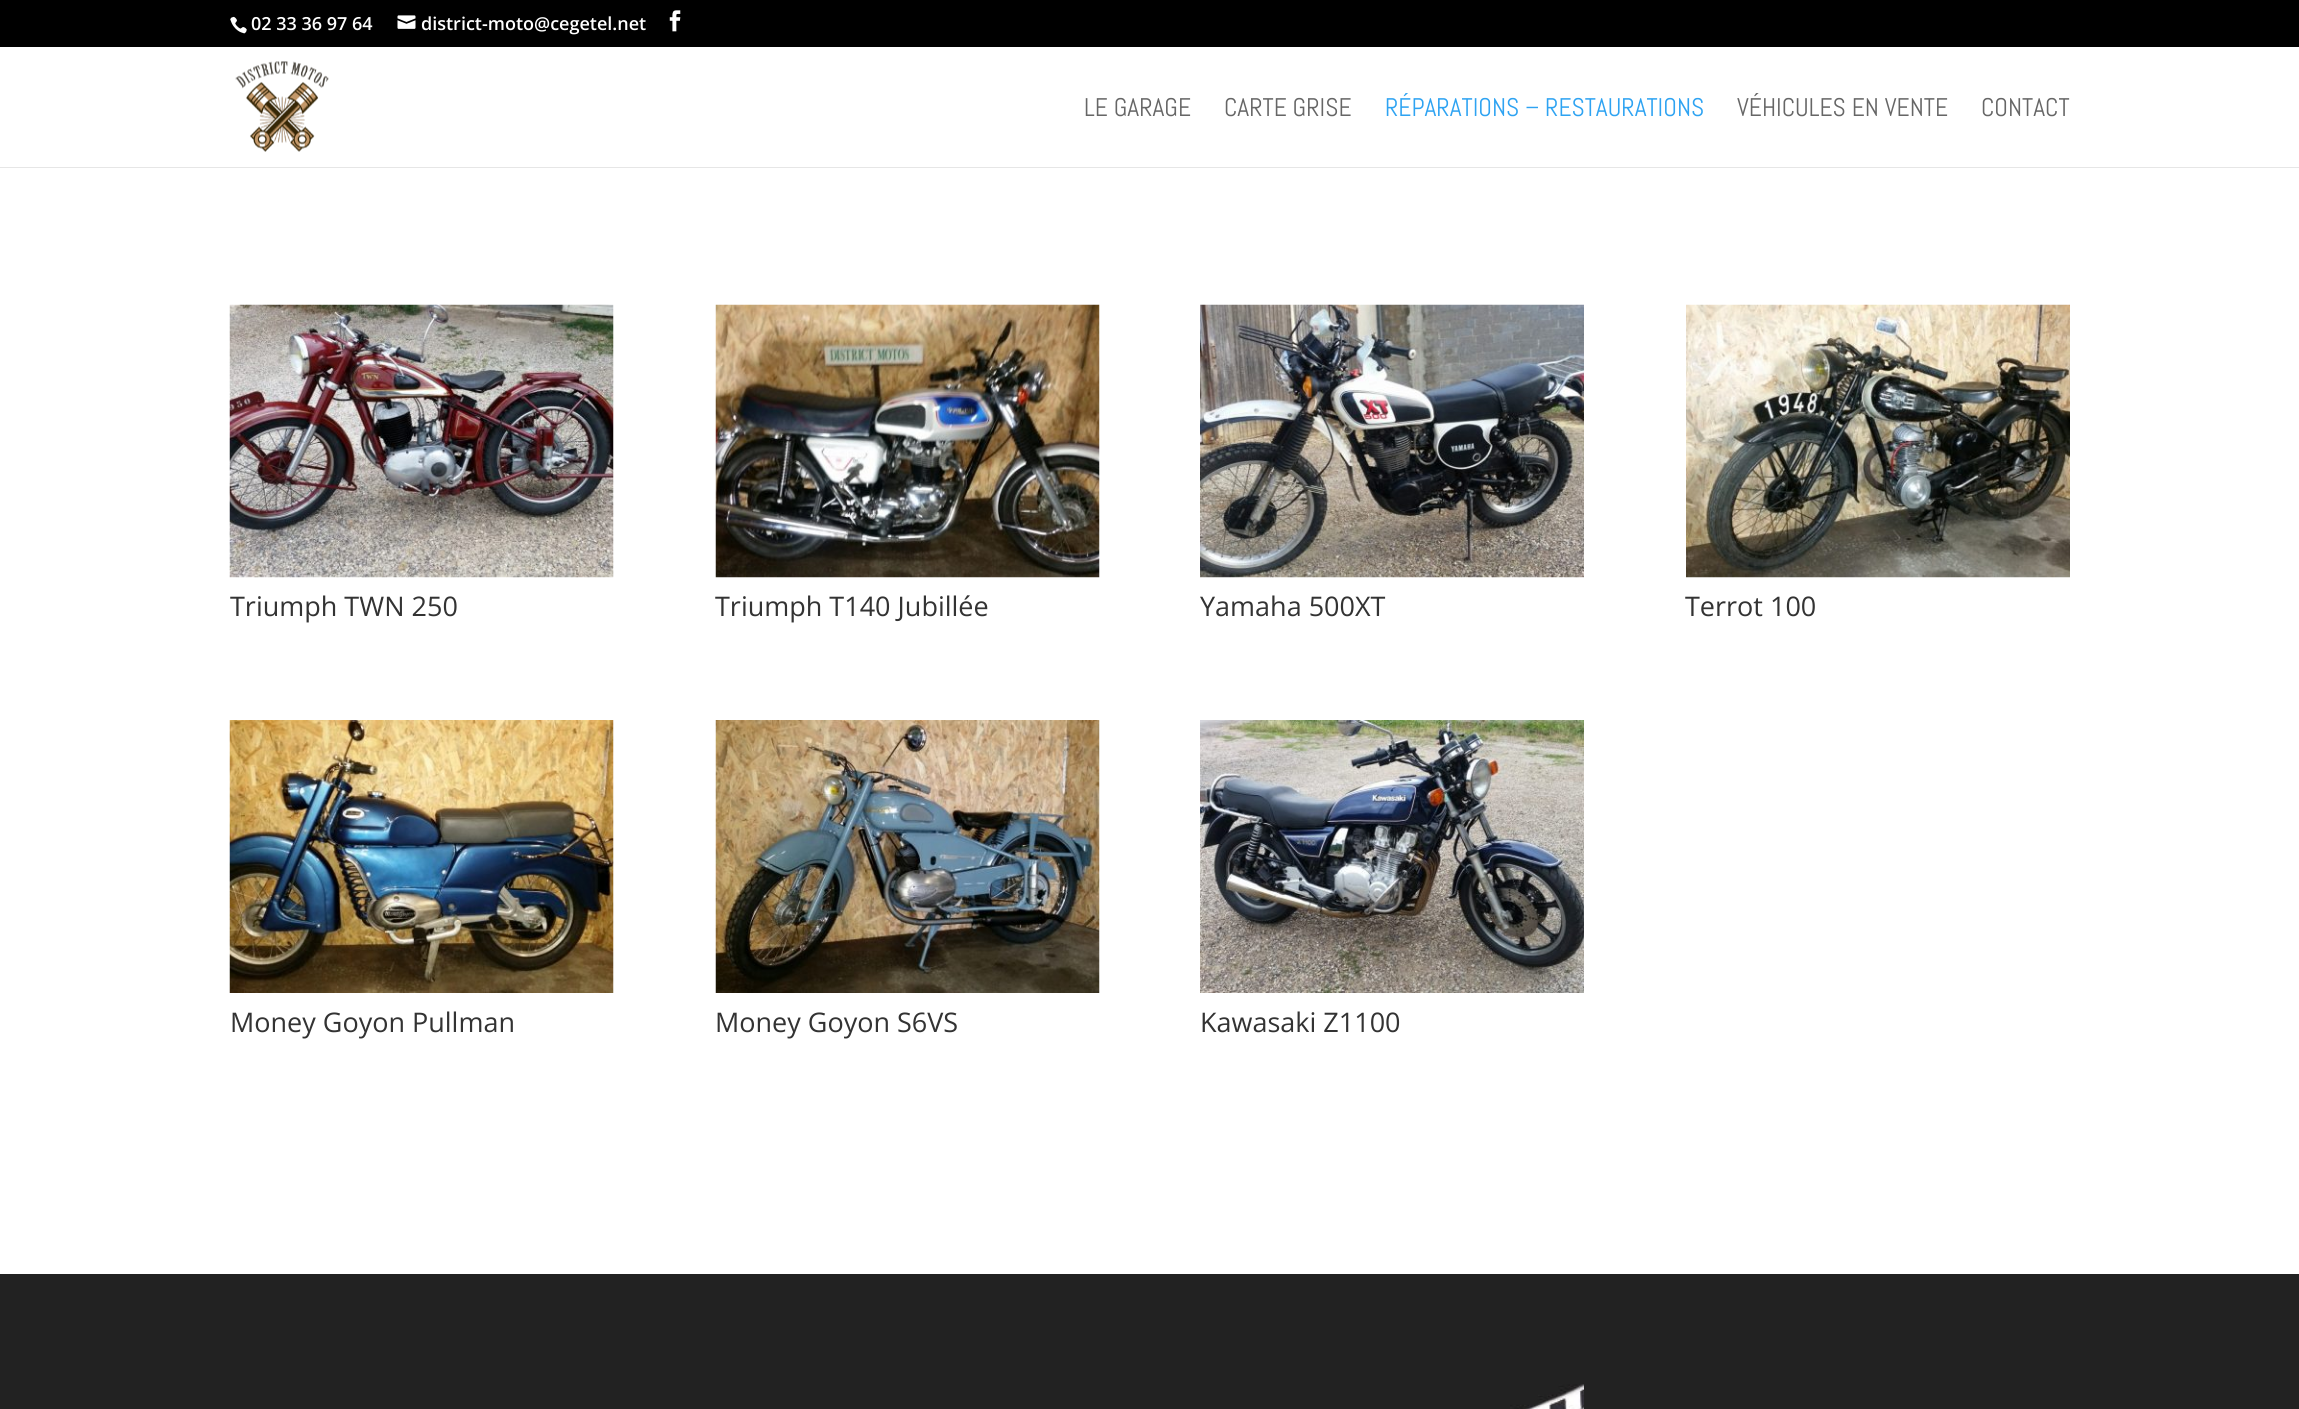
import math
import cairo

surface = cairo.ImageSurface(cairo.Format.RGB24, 2299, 1409)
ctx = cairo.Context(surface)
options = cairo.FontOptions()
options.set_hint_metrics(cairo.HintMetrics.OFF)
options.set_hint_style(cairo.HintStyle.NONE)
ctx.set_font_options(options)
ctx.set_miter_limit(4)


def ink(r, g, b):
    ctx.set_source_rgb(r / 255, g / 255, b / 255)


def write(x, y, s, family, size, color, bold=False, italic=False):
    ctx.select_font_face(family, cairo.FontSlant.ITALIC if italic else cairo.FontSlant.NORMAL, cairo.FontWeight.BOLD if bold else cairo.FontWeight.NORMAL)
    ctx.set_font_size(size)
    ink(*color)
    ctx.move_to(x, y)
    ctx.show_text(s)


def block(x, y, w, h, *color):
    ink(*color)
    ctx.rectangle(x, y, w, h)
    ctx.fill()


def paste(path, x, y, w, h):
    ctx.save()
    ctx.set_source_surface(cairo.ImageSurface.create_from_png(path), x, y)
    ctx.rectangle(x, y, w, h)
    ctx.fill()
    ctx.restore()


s1 = dict(family="Open Sans SemiBold", size=18, color=(255, 255, 255))
s2 = dict(family="Abel", size=25.5, color=(102, 102, 102))
s3 = dict(family="Abel", size=25.5, color=(46, 163, 242))
s4 = dict(family="Open Sans", size=27, color=(51, 51, 51))

ink(0, 0, 0)
ctx.paint()
paste("pic1.png", 230, 16, 17, 18)
write(251, 30, "02 33 36 97 64", **s1)
paste("pic2.png", 397, 15, 19, 14)
write(421, 30, "district-moto@cegetel.net", **s1)
paste("pic3.png", 669, 10, 12, 22)
block(0, 167, 2299, 1107, 255, 255, 255)
ctx.set_source_rgba(0, 0, 0, 0.1)
ctx.new_path()
ctx.move_to(0, 166)
ctx.line_to(0, 168)
ctx.line_to(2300, 168)
ctx.line_to(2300, 48)
ctx.line_to(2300, 166)
ctx.close_path()
ctx.fill()
block(0, 47, 2299, 120, 255, 255, 255)
paste("pic4.png", 235, 61, 94, 91)
write(1084, 116, "LE GARAGE", **s2)
write(1224, 116, "CARTE GRISE", **s2)
write(1385, 116, "RÉPARATIONS – RESTAURATIONS", **s3)
write(1737, 116, "VÉHICULES EN VENTE", **s2)
write(1981, 116, "CONTACT", **s2)
paste("pic5.png", 229, 304, 385, 274)
write(230, 616, "Triumph TWN 250", **s4)
paste("pic6.png", 715, 304, 385, 274)
write(715, 616, "Triumph T140 Jubillée", **s4)
paste("pic7.png", 1200, 304, 384, 274)
write(1200, 616, "Yamaha 500XT", **s4)
paste("pic8.png", 1686, 304, 384, 274)
write(1685, 616, "Terrot 100", **s4)
paste("pic9.png", 229, 720, 385, 273)
write(230, 1032, "Money Goyon Pullman", **s4)
paste("pic10.png", 715, 720, 385, 273)
write(715, 1032, "Money Goyon S6VS", **s4)
paste("pic11.png", 1200, 720, 384, 273)
write(1200, 1032, "Kawasaki Z1100", **s4)
block(0, 1274, 2299, 135, 34, 34, 34)
paste("pic12.png", 1510, 1384, 74, 25)
surface.write_to_png("screenshot.png")
